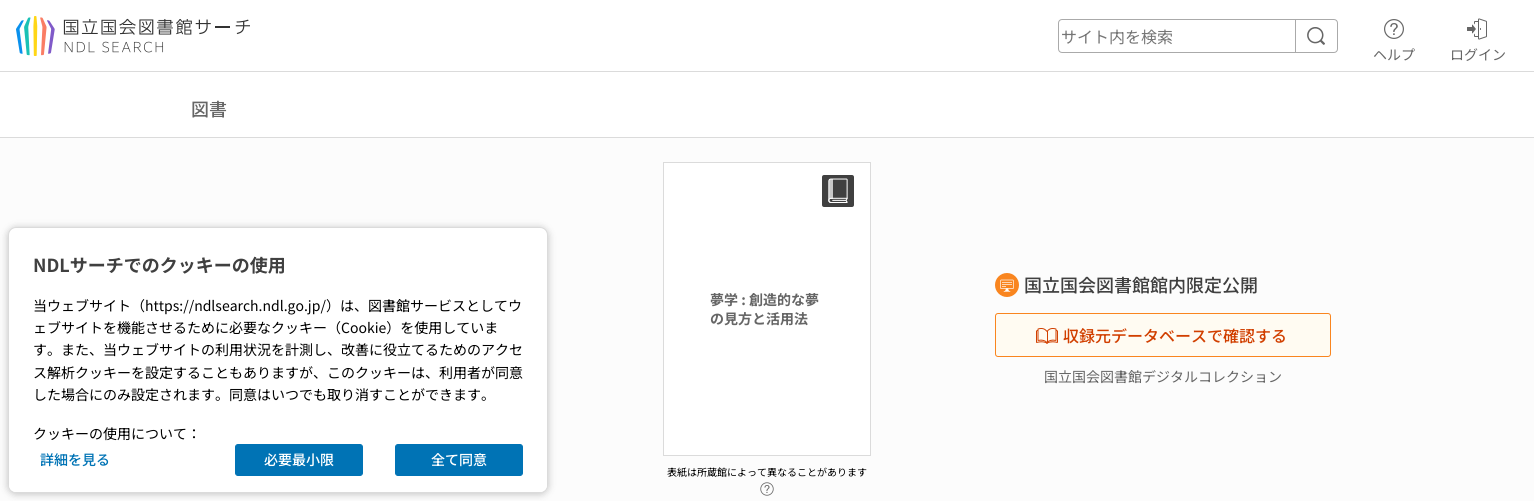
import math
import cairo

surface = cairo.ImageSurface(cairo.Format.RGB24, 1534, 501)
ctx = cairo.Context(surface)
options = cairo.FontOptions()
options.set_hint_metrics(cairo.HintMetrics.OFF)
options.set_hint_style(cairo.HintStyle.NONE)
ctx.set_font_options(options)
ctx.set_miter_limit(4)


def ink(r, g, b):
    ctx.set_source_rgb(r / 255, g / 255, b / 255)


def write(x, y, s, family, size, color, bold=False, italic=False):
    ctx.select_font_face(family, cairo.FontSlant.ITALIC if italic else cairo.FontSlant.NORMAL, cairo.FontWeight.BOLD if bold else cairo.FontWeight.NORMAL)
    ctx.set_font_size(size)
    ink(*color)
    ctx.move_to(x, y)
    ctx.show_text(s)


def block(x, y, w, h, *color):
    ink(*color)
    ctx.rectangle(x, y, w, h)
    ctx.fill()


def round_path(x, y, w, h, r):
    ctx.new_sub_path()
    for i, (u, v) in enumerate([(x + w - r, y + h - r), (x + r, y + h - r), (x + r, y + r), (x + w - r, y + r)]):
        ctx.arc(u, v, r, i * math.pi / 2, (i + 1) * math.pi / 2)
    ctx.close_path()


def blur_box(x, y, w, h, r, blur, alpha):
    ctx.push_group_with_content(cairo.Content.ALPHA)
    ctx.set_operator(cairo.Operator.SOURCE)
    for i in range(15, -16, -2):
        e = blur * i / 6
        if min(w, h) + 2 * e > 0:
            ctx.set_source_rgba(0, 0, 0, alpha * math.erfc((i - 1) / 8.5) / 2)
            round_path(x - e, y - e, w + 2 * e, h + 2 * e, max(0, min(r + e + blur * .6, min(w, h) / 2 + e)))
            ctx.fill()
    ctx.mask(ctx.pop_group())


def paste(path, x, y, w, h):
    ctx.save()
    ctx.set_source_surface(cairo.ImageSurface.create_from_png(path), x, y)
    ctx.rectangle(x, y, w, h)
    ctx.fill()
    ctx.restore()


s1 = dict(family="Noto Sans JP", size=16, color=(118, 118, 118))
s2 = dict(family="Noto Sans JP", size=14, color=(102, 102, 102))
s3 = dict(family="Noto Sans JP Medium", size=18, color=(102, 102, 102))
s4 = dict(family="Noto Sans JP", size=14, color=(102, 102, 102), bold=True)
s5 = dict(family="Noto Sans JP", size=10, color=(0, 0, 0))
s6 = dict(family="Noto Sans JP Medium", size=18, color=(64, 64, 64))
s7 = dict(family="Noto Sans JP Medium", size=16, color=(209, 63, 0))
s8 = dict(family="Noto Sans JP", size=18, color=(64, 64, 64), bold=True)
s9 = dict(family="Noto Sans JP", size=14, color=(0, 0, 0))
s10 = dict(family="Noto Sans JP Medium", size=14, color=(0, 115, 181))
s11 = dict(family="Noto Sans JP Medium", size=14, color=(255, 255, 255))

ink(255, 255, 255)
ctx.paint()
block(0, 71, 1534, 1, 219, 219, 219)
paste("pic1.png", 16, 16, 234, 40)
round_path(1058.5, 19.5, 279, 33, 3.5)
ink(170, 170, 170)
ctx.set_line_width(1)
ctx.stroke()
write(1061, 43, "サイト内を検索", **s1)
block(1295, 19, 1, 34, 170, 170, 170)
paste("pic2.png", 1307, 27, 18, 18)
paste("pic3.png", 1384, 19, 20, 20)
write(1373, 60, "ヘルプ", **s2)
paste("pic4.png", 1467, 18, 20, 22)
write(1450, 60, "ログイン", **s2)
write(191, 116, "図書", **s3)
block(0, 138, 1534, 363, 252, 252, 252)
block(0, 137, 1534, 1, 219, 219, 219)
ink(255, 255, 255)
ctx.rectangle(663.5, 162.5, 207, 293)
ctx.fill_preserve()
ink(219, 219, 219)
ctx.stroke()
paste("pic5.png", 822, 175, 32, 32)
write(710, 305, "夢学 : 創造的な夢", **s4)
write(710, 324, "の見方と活用法", **s4)
write(667, 476, "表紙は所蔵館によって異なることがあります", **s5)
paste("pic6.png", 760, 482, 14, 14)
paste("pic7.png", 995, 273, 24, 24)
write(1024, 292, "国立国会図書館館内限定公開", **s6)
ink(255, 251, 242)
round_path(995.5, 313.5, 335, 43, 2.5)
ctx.fill_preserve()
ink(249, 133, 31)
ctx.stroke()
paste("pic8.png", 1036, 328, 22, 16)
write(1063, 342, "収録元データベースで確認する", **s7)
write(1044, 382, "国立国会図書館デジタルコレクション", **s2)
ink(0, 0, 0)
blur_box(8, 228, 540, 266, 8, 4, 0.24)
ink(255, 255, 255)
round_path(8.5, 227.5, 539, 265, 7.5)
ctx.fill_preserve()
ink(219, 219, 219)
ctx.stroke()
write(33, 272, "NDLサーチでのクッキーの使用", **s8)
write(33, 311, "当ウェブサイト（https://ndlsearch.ndl.go.jp/）は、図書館サービスとしてウ", **s9)
write(33, 333, "ェブサイトを機能させるために必要なクッキー（Cookie）を使用していま", **s9)
write(33, 355, "す。また、当ウェブサイトの利用状況を計測し、改善に役立てるためのアクセ", **s9)
write(33, 378, "ス解析クッキーを設定することもありますが、このクッキーは、利用者が同意", **s9)
write(33, 400, "した場合にのみ設定されます。同意はいつでも取り消すことができます。", **s9)
ink(255, 255, 255)
ctx.new_path()
ctx.move_to(9, 406)
ctx.line_to(547, 406)
ctx.line_to(547, 485)
ctx.curve_to(547, 489, 544, 492, 540, 492)
ctx.line_to(16, 492)
ctx.curve_to(12, 492, 9, 489, 9, 485)
ctx.close_path()
ctx.fill()
write(33, 439, "クッキーの使用について：", **s9)
write(40, 465, "詳細を見る", **s10)
round_path(235.5, 444.5, 127, 31, 2.5)
ctx.fill_preserve()
ctx.stroke()
write(264, 465, "必要最小限", **s11)
ink(0, 115, 181)
round_path(395.5, 444.5, 127, 31, 2.5)
ctx.fill_preserve()
ctx.stroke()
write(431, 465, "全て同意", **s11)
surface.write_to_png("screenshot.png")
